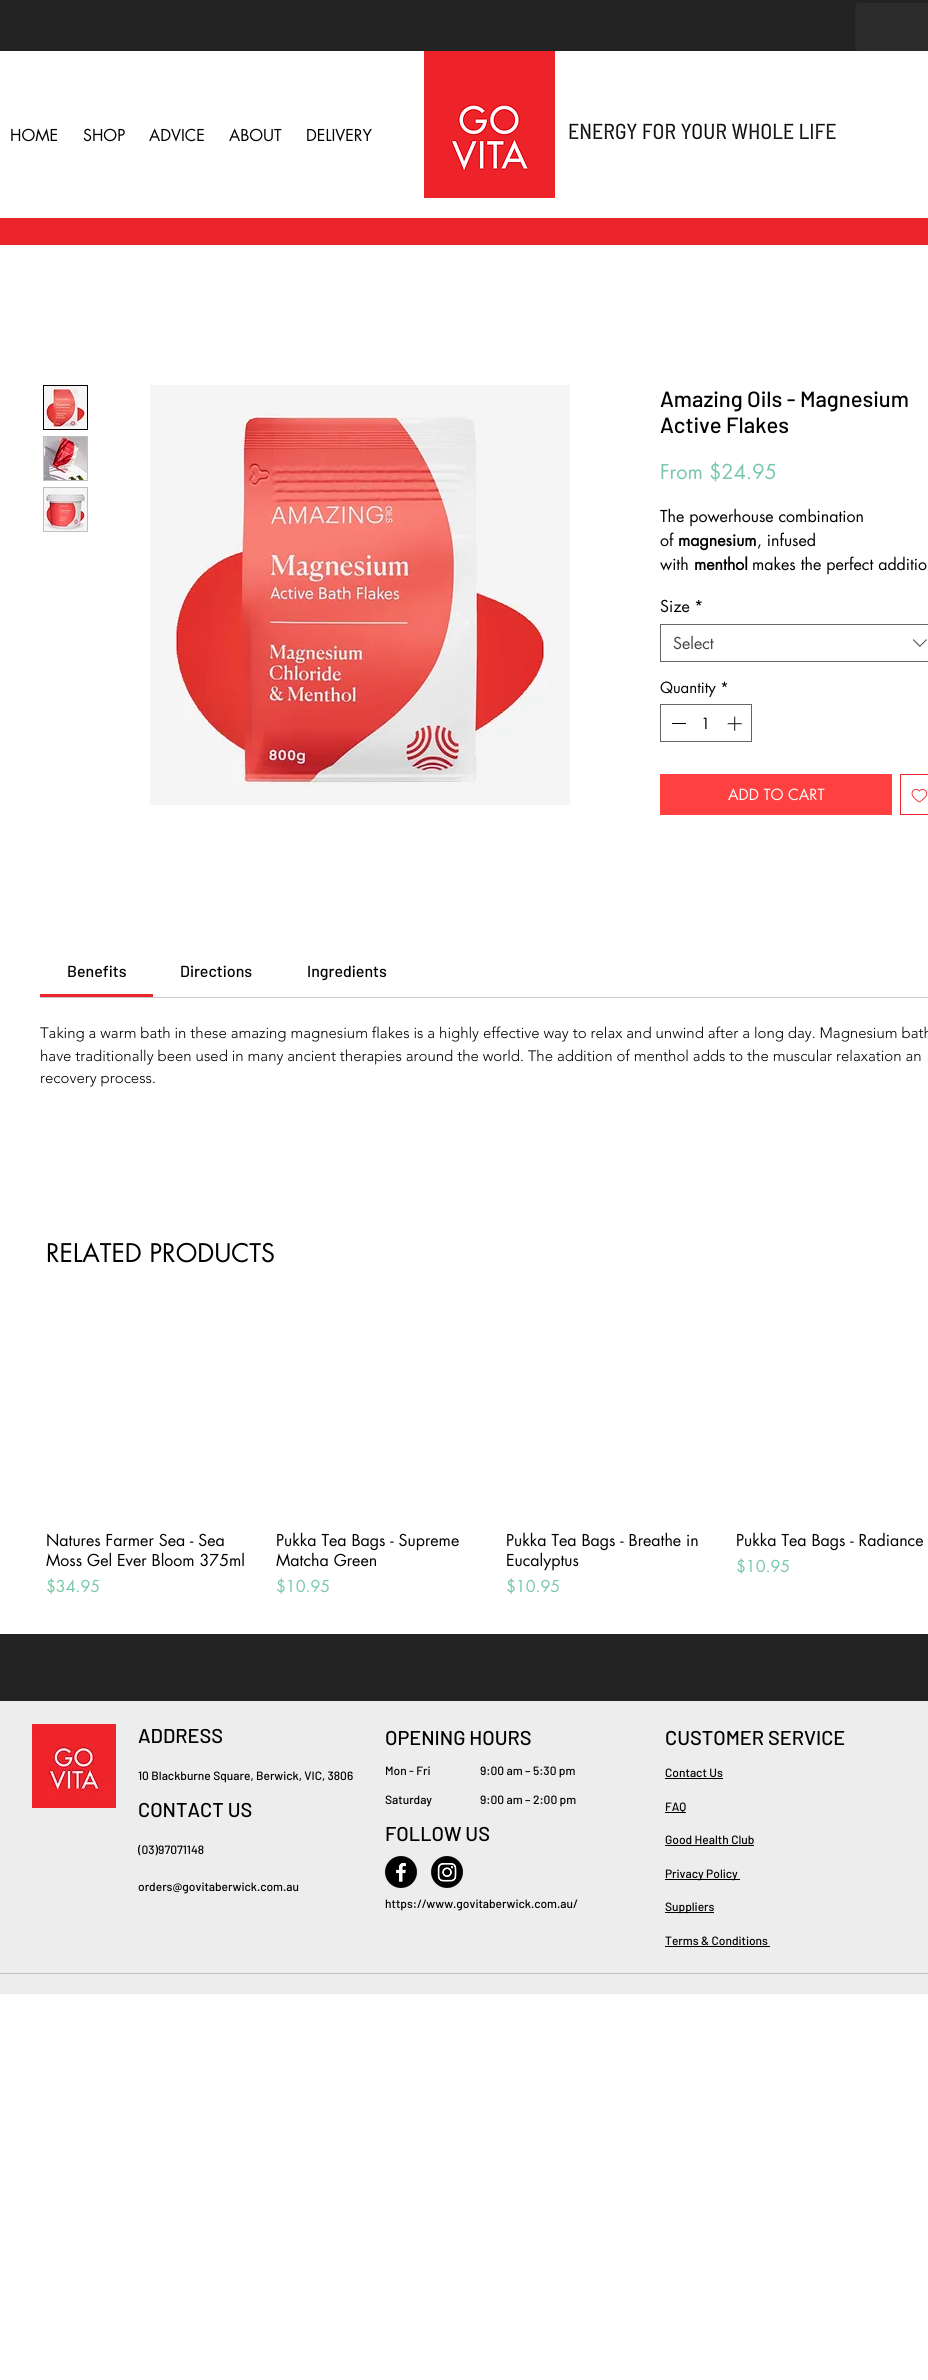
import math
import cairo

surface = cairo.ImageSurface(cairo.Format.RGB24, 928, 2380)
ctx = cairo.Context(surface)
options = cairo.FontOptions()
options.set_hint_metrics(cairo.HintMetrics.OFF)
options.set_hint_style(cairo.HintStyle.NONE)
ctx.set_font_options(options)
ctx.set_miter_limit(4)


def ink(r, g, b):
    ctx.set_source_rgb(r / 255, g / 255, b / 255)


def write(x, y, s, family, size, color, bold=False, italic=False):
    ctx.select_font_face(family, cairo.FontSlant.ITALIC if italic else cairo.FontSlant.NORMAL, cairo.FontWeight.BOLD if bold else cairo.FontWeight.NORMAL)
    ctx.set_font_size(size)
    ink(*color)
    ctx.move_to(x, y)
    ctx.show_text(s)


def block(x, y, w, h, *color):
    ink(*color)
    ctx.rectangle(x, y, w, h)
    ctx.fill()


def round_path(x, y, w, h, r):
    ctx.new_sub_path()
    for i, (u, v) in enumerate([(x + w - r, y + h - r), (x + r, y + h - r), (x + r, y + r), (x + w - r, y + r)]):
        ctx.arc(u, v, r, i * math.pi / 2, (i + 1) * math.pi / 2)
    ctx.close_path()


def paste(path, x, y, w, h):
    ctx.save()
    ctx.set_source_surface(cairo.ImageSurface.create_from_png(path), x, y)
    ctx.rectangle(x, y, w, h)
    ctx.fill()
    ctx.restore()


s1 = dict(family="futura", size=16, color=(0, 0, 0))
s2 = dict(family="Barlow Medium", size=22, color=(0, 0, 0))
s3 = dict(family="futura", size=20, color=(120, 200, 168))
s4 = dict(family="futura", size=16, color=(0, 0, 0), bold=True)
s5 = dict(family="futura", size=16, color=(68, 68, 68))
s6 = dict(family="futura", size=15, color=(0, 0, 0))
s7 = dict(family="futura", size=15, color=(255, 255, 255))
s8 = dict(family="Barlow Medium", size=16, color=(0, 0, 0))
s9 = dict(family="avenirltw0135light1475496 Light", size=15, color=(0, 0, 0))
s10 = dict(family="futura", size=25, color=(0, 0, 0))
s11 = dict(family="futura", size=16, color=(120, 200, 168))
s12 = dict(family="Barlow Medium", size=20, color=(0, 0, 0))
s13 = dict(family="Barlow Medium", size=12, color=(0, 0, 0))

ink(255, 255, 255)
ctx.paint()
block(0, 0, 928, 51, 36, 35, 35)
ink(43, 43, 43)
round_path(855, 3, 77, 48, 4)
ctx.fill()
write(10, 141, "HOME", **s1)
write(83, 141, "SHOP", **s1)
write(149, 141, "ADVICE", **s1)
write(229, 141, "ABOUT", **s1)
write(306, 141, "DELIVERY", **s1)
paste("pic1.png", 424, 51, 131, 147)
paste("pic2.png", 569, 123, 267, 17)
block(0, 218, 928, 27, 236, 36, 44)
ctx.rectangle(43.5, 385.5, 44, 44)
ink(0, 0, 0)
ctx.set_line_width(1)
ctx.stroke()
paste("pic3.png", 44, 386, 43, 43)
block(43, 436, 45, 45, 191, 191, 191)
paste("pic4.png", 44, 437, 43, 43)
block(43, 487, 45, 45, 191, 191, 191)
paste("pic5.png", 44, 488, 43, 43)
paste("pic6.png", 150, 385, 420, 420)
write(660, 407, "Amazing Oils - Magnesium", **s2)
write(660, 433, "Active Flakes", **s2)
write(660, 479, "From $24.95", **s3)
write(660, 522, "The powerhouse combination", **s1)
write(660, 546, "of", **s1)
write(678, 546, "magnesium", **s4)
write(757, 546, ", infused", **s1)
write(660, 570, "with", **s1)
write(694, 570, "menthol", **s4)
write(752, 570, "makes the perfect additio", **s1)
write(660, 612, "Size", **s1)
write(694, 612, "*", **s1)
ctx.rectangle(660.5, 624.5, 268, 37)
ink(102, 102, 102)
ctx.stroke()
write(673, 649, "Select", **s5)
paste("pic7.png", 912, 639, 15, 8)
write(660, 693, "Quantity", **s6)
write(720, 693, "*", **s6)
ctx.rectangle(660.5, 704.5, 91, 37)
ink(102, 102, 102)
ctx.stroke()
block(672, 723, 14, 1, 0, 0, 0)
write(701, 729, "1", **s6)
paste("pic8.png", 727, 716, 15, 15)
block(660, 774, 232, 41, 255, 64, 64)
write(728, 800, "ADD TO CART", **s7)
ctx.rectangle(900.5, 774.5, 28, 40)
ink(236, 36, 44)
ctx.stroke()
paste("pic9.png", 911, 789, 17, 14)
block(40, 997, 888, 1, 204, 204, 204)
block(40, 994, 113, 3, 236, 36, 44)
write(67, 977, "Benefits", **s8)
write(180, 977, "Directions", **s8)
write(307, 977, "Ingredients", **s8)
write(40, 1038, "Taking a warm bath in these amazing magnesium flakes is a highly effective way to relax and unwind after a long day. Magnesium bath", **s9)
write(40, 1061, "have traditionally been used in many ancient therapies around the world. The addition of menthol adds to the muscular relaxation an", **s9)
write(40, 1083, "recovery process.", **s9)
write(46, 1262, "RELATED PRODUCTS", **s10)
write(46, 1546, "Natures Farmer Sea - Sea", **s1)
write(46, 1566, "Moss Gel Ever Bloom 375ml", **s1)
write(46, 1592, "$34.95", **s11)
write(276, 1546, "Pukka Tea Bags - Supreme", **s1)
write(276, 1566, "Matcha Green", **s1)
write(276, 1592, "$10.95", **s11)
write(506, 1546, "Pukka Tea Bags - Breathe in", **s1)
write(506, 1566, "Eucalyptus", **s1)
write(506, 1592, "$10.95", **s11)
write(736, 1546, "Pukka Tea Bags - Radiance", **s1)
write(736, 1572, "$10.95", **s11)
block(0, 1701, 928, 293, 237, 237, 237)
block(0, 1634, 928, 67, 36, 35, 35)
paste("pic10.png", 32, 1724, 84, 84)
write(138, 1743, "ADDRESS", **s12)
write(138, 1780, "10 Blackburne Square, Berwick, VIC, 3806", **s13)
write(138, 1817, "CONTACT US", **s12)
write(138, 1854, "(03)97071148", **s13)
write(138, 1891, "orders@govitaberwick.com.au", **s13)
write(385, 1745, "OPENING HOURS", **s12)
write(385, 1775, "Mon - Fri", **s13)
write(480, 1775, "9:00 am – 5:30 pm", **s13)
write(385, 1804, "Saturday", **s13)
write(480, 1804, "9:00 am – 2:00 pm", **s13)
write(385, 1841, "FOLLOW US", **s12)
paste("pic11.png", 385, 1856, 32, 32)
paste("pic12.png", 431, 1856, 32, 32)
write(385, 1908, "https://www.govitaberwick.com.au/", **s13)
write(665, 1745, "CUSTOMER SERVICE", **s12)
write(665, 1777, "Contact Us", **s13)
block(665, 1778, 58, 1, 0, 0, 0)
block(665, 1812, 21, 1, 0, 0, 0)
write(665, 1811, "FAQ", **s13)
write(665, 1844, "Good Health Club", **s13)
block(665, 1845, 89, 1, 0, 0, 0)
block(665, 1879, 75, 1, 0, 0, 0)
write(665, 1878, "Privacy Policy", **s13)
block(665, 1912, 49, 1, 0, 0, 0)
write(665, 1911, "Suppliers", **s13)
write(665, 1945, "Terms & Conditions", **s13)
block(665, 1946, 105, 1, 0, 0, 0)
block(0, 1973, 928, 1, 191, 191, 191)
surface.write_to_png("screenshot.png")
